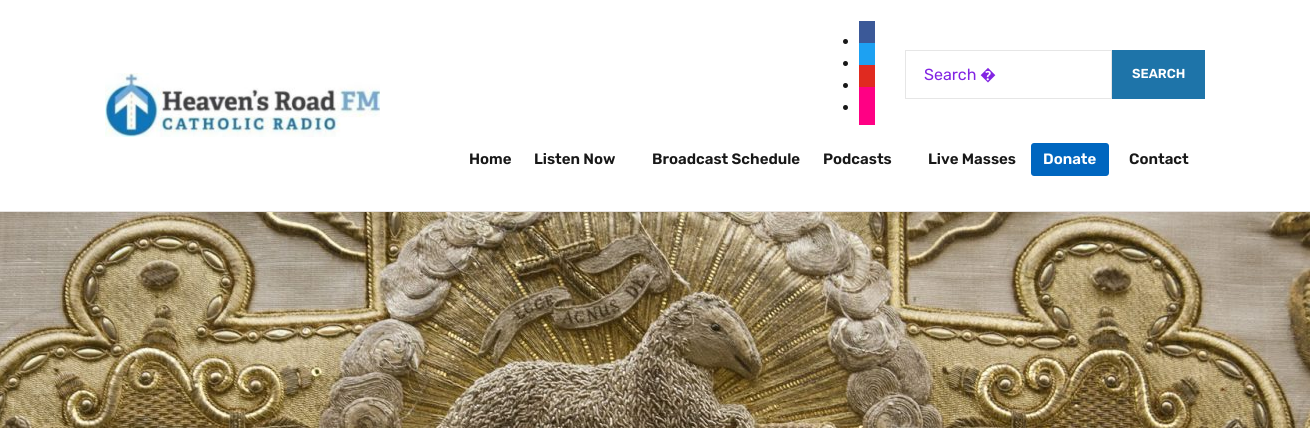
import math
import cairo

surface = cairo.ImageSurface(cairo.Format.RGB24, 1310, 428)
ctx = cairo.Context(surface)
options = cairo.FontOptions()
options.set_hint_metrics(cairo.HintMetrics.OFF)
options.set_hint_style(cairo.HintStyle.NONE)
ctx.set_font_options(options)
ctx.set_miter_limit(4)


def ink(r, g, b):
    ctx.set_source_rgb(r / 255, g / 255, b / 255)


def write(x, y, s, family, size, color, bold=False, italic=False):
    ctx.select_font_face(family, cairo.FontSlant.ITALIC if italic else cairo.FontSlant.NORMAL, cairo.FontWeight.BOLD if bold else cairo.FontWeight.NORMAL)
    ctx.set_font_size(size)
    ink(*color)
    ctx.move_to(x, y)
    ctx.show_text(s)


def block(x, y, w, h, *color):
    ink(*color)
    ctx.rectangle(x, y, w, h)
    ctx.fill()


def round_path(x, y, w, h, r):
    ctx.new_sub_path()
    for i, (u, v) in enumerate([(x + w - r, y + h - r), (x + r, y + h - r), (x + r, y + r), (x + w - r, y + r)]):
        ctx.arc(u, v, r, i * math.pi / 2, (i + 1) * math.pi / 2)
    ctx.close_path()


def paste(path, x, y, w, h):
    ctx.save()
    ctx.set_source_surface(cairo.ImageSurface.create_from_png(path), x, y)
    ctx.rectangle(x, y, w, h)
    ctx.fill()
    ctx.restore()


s1 = dict(family="Rubik", size=16, color=(130, 36, 227))
s2 = dict(family="Noto Sans", size=16, color=(130, 36, 227))
s3 = dict(family="Rubik SemiBold", size=13, color=(255, 255, 255))
s4 = dict(family="Rubik SemiBold", size=15, color=(24, 24, 24))
s5 = dict(family="Rubik SemiBold", size=15, color=(255, 255, 255))

ink(255, 255, 255)
ctx.paint()
block(0, 211, 1310, 1, 231, 227, 224)
paste("pic1.png", 105, 73, 275, 64)
ink(24, 24, 24)
ctx.arc(845.5, 41.5, 2.5, 0, 2 * math.pi)
ctx.fill()
block(859, 21, 16, 22, 59, 89, 152)
ink(24, 24, 24)
ctx.arc(845.5, 63.5, 2.5, 0, 2 * math.pi)
ctx.fill()
block(859, 43, 16, 22, 29, 161, 242)
ink(24, 24, 24)
ctx.arc(845.5, 85.5, 2.5, 0, 2 * math.pi)
ctx.fill()
block(859, 65, 16, 22, 224, 42, 32)
ink(24, 24, 24)
ctx.arc(845.5, 107.5, 2.5, 0, 2 * math.pi)
ctx.fill()
block(859, 87, 16, 38, 255, 0, 132)
ctx.rectangle(905.5, 50.5, 206, 48)
ink(230, 230, 230)
ctx.set_line_width(1)
ctx.stroke()
write(924, 80, "Search", **s1)
write(980, 80, "�", **s2)
block(1112, 50, 93, 49, 30, 116, 169)
write(1132, 78, "SEARCH", **s3)
write(469, 164, "Home", **s4)
write(534, 164, "Listen Now", **s4)
write(652, 164, "Broadcast Schedule", **s4)
write(823, 164, "Podcasts", **s4)
write(928, 164, "Live Masses", **s4)
ink(0, 102, 191)
round_path(1031, 143, 78, 33, 3)
ctx.fill()
write(1043, 164, "Donate", **s5)
write(1129, 164, "Contact", **s4)
paste("pic2.png", 0, 212, 1310, 216)
surface.write_to_png("screenshot.png")
